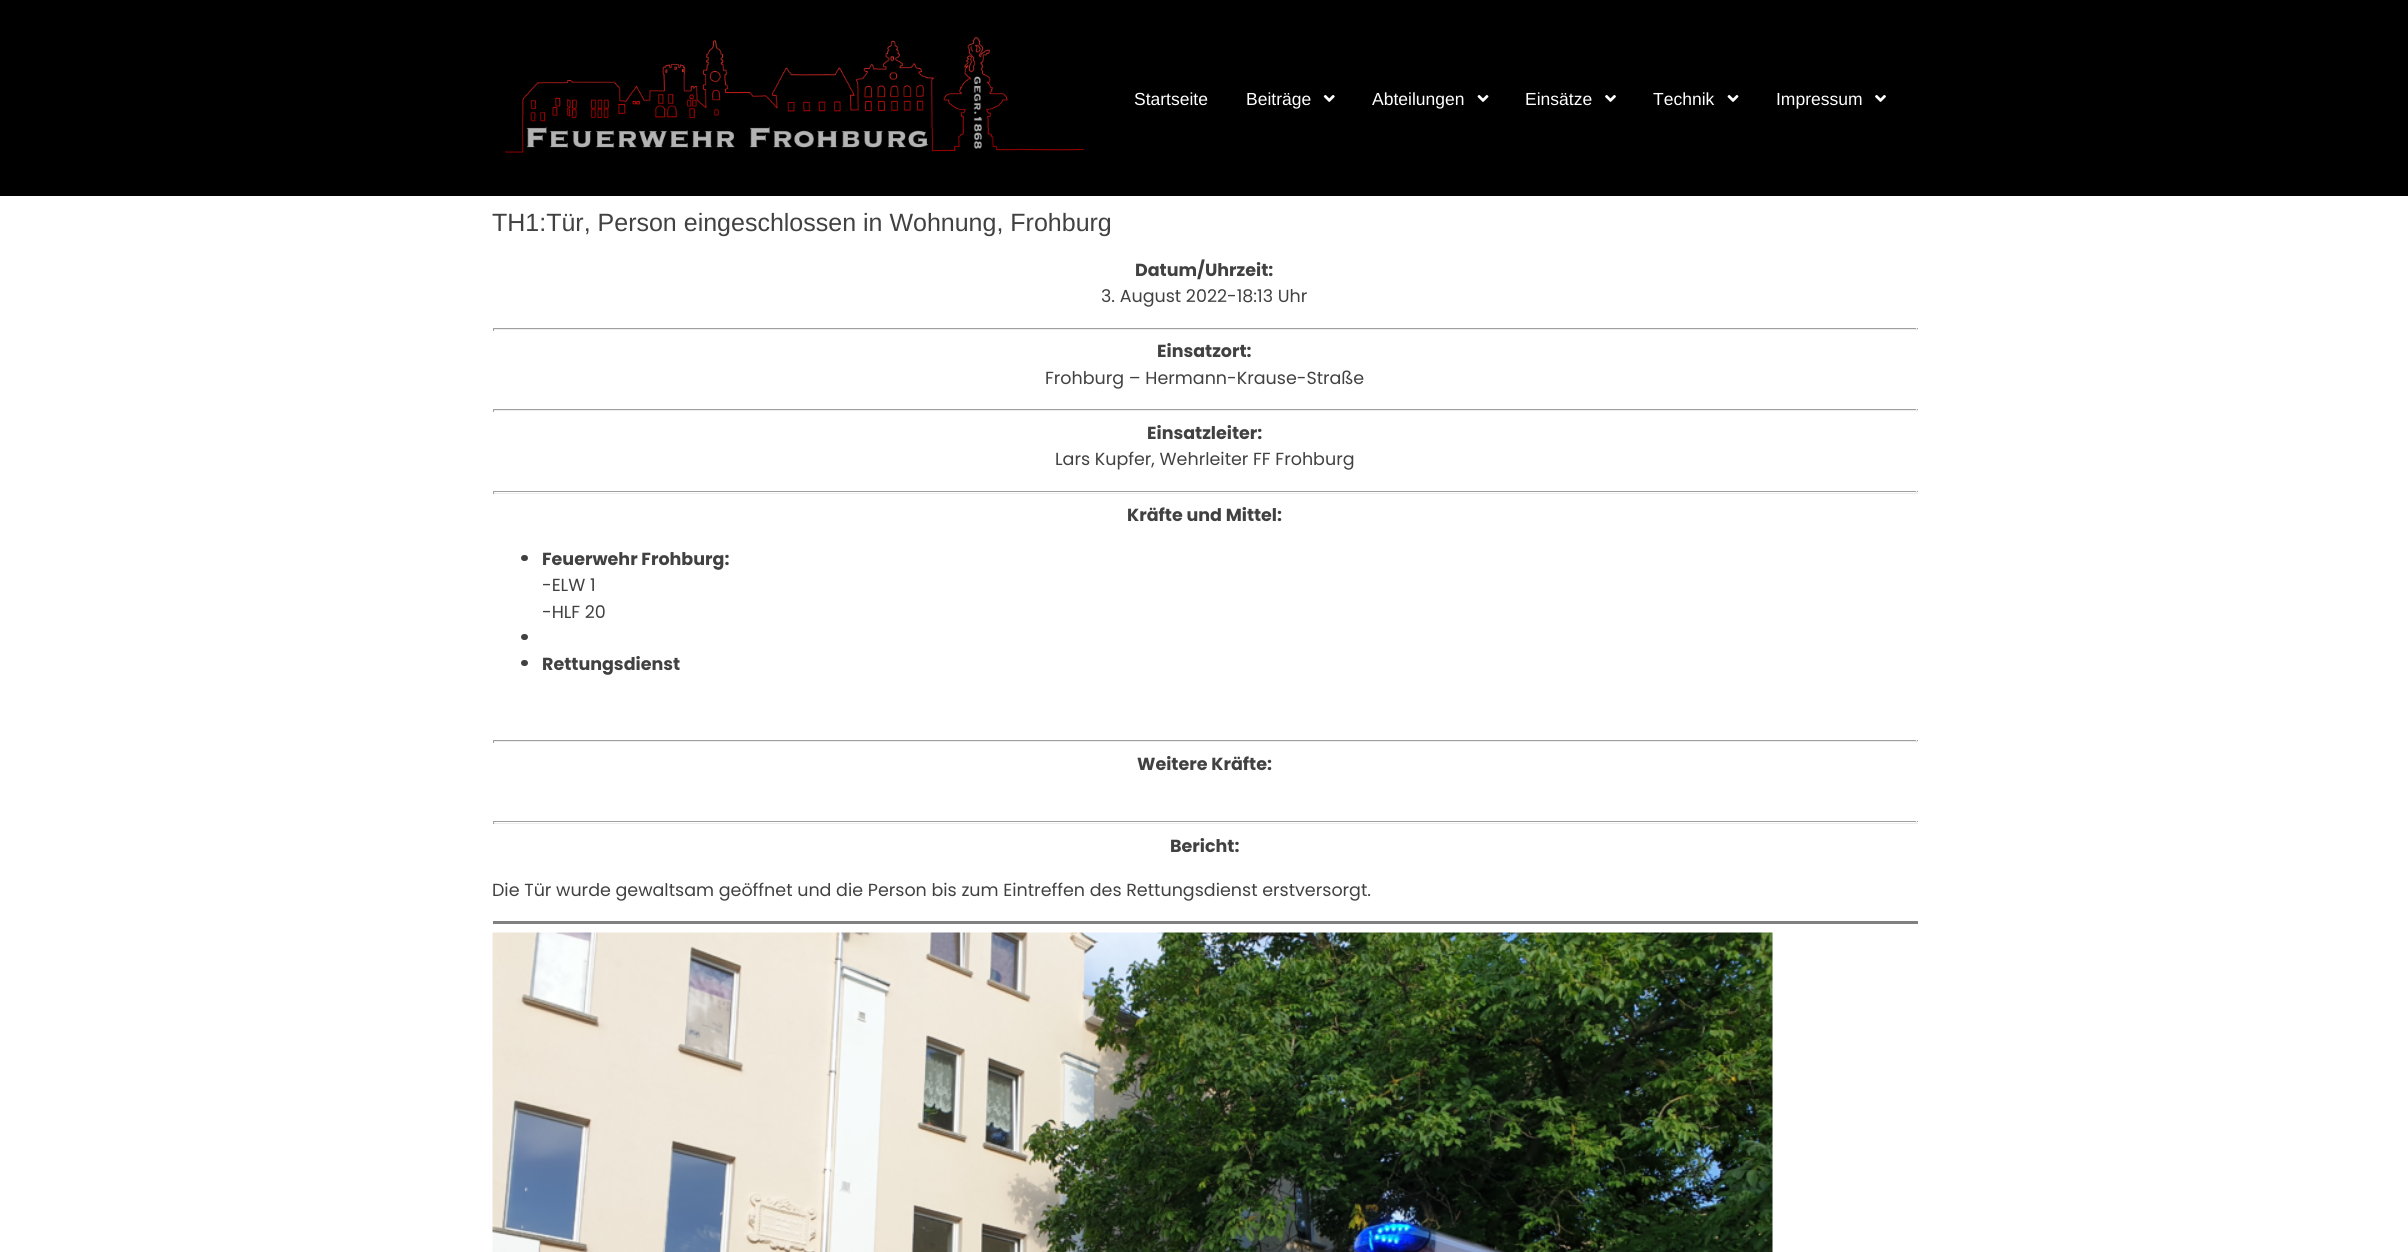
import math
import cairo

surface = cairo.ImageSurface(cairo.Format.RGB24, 2408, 1252)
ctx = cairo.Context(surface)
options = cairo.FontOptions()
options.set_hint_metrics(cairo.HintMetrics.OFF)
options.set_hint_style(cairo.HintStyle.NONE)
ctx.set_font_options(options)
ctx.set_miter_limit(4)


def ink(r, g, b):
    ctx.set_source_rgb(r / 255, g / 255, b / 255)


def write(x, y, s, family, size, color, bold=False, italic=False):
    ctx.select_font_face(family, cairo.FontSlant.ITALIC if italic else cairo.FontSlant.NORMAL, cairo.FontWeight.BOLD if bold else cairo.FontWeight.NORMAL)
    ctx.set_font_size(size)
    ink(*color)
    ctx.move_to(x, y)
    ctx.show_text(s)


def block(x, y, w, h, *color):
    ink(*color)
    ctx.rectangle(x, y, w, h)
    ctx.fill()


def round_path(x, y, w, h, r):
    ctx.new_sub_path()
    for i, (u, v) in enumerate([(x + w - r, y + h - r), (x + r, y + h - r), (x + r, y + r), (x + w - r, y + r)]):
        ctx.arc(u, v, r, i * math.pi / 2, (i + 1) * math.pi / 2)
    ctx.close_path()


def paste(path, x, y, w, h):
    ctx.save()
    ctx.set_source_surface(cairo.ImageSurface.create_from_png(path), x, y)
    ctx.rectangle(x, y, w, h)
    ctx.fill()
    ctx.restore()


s1 = dict(family="Liberation Sans", size=17.5, color=(255, 255, 255))
s2 = dict(family="Liberation Sans", size=25, color=(65, 65, 65))
s3 = dict(family="Poppins", size=17.5, color=(65, 65, 65), bold=True)
s4 = dict(family="Poppins", size=17.5, color=(65, 65, 65))

ink(255, 255, 255)
ctx.paint()
block(0, 0, 2408, 196, 0, 0, 0)
paste("pic1.png", 505, 37, 579, 116)
write(1134, 105, "Startseite", **s1)
write(1246, 105, "Beiträge", **s1)
paste("pic2.png", 1323, 95, 12, 7)
write(1372, 105, "Abteilungen", **s1)
paste("pic3.png", 1477, 95, 12, 7)
write(1525, 105, "Einsätze", **s1)
paste("pic4.png", 1605, 95, 11, 7)
write(1653, 105, "Technik", **s1)
paste("pic3.png", 1727, 95, 12, 7)
write(1776, 105, "Impressum", **s1)
paste("pic4.png", 1875, 95, 11, 7)
write(492, 231, "TH1:Tür, Person eingeschlossen in Wohnung, Frohburg", **s2)
write(1135, 276, "Datum/Uhrzeit:", **s3)
write(1101, 302, "3. August 2022-18:13 Uhr", **s4)
block(493, 328, 1425, 1, 159, 159, 159)
block(1916, 328, 1, 3, 238, 238, 238)
block(493, 329, 1425, 1, 238, 238, 238)
block(493, 328, 1, 3, 159, 159, 159)
write(1157, 357, "Einsatzort:", **s3)
write(1045, 384, "Frohburg – Hermann-Krause-Straße", **s4)
block(493, 409, 1425, 1, 159, 159, 159)
block(1916, 409, 1, 3, 238, 238, 238)
block(493, 410, 1425, 1, 238, 238, 238)
block(493, 409, 1, 3, 159, 159, 159)
write(1147, 439, "Einsatzleiter:", **s3)
write(1055, 465, "Lars Kupfer, Wehrleiter FF Frohburg", **s4)
block(493, 491, 1425, 1, 159, 159, 159)
block(1916, 491, 1, 3, 238, 238, 238)
block(493, 493, 1425, 1, 238, 238, 238)
block(493, 491, 1, 3, 159, 159, 159)
write(1127, 521, "Kräfte und Mittel:", **s3)
round_path(521, 555, 7, 6, 3)
ctx.fill()
write(542, 565, "Feuerwehr Frohburg:", **s3)
write(542, 591, "-ELW 1", **s4)
write(542, 618, "-HLF 20", **s4)
round_path(521, 634, 7, 6, 3)
ctx.fill()
round_path(521, 660, 7, 6, 3)
ctx.fill()
write(542, 670, "Rettungsdienst", **s3)
block(493, 740, 1425, 1, 159, 159, 159)
block(1916, 740, 1, 3, 238, 238, 238)
block(493, 741, 1425, 1, 238, 238, 238)
block(493, 740, 1, 3, 159, 159, 159)
write(1137, 770, "Weitere Kräfte:", **s3)
block(493, 821, 1425, 1, 159, 159, 159)
block(1916, 821, 1, 3, 238, 238, 238)
block(493, 823, 1425, 1, 238, 238, 238)
block(493, 821, 1, 3, 159, 159, 159)
write(1170, 852, "Bericht:", **s3)
write(492, 896, "Die Tür wurde gewaltsam geöffnet und die Person bis zum Eintreffen des Rettungsdienst erstversorgt.", **s4)
block(493, 921, 1425, 3, 128, 128, 128)
paste("pic5.png", 492, 932, 1281, 320)
surface.write_to_png("screenshot.png")
